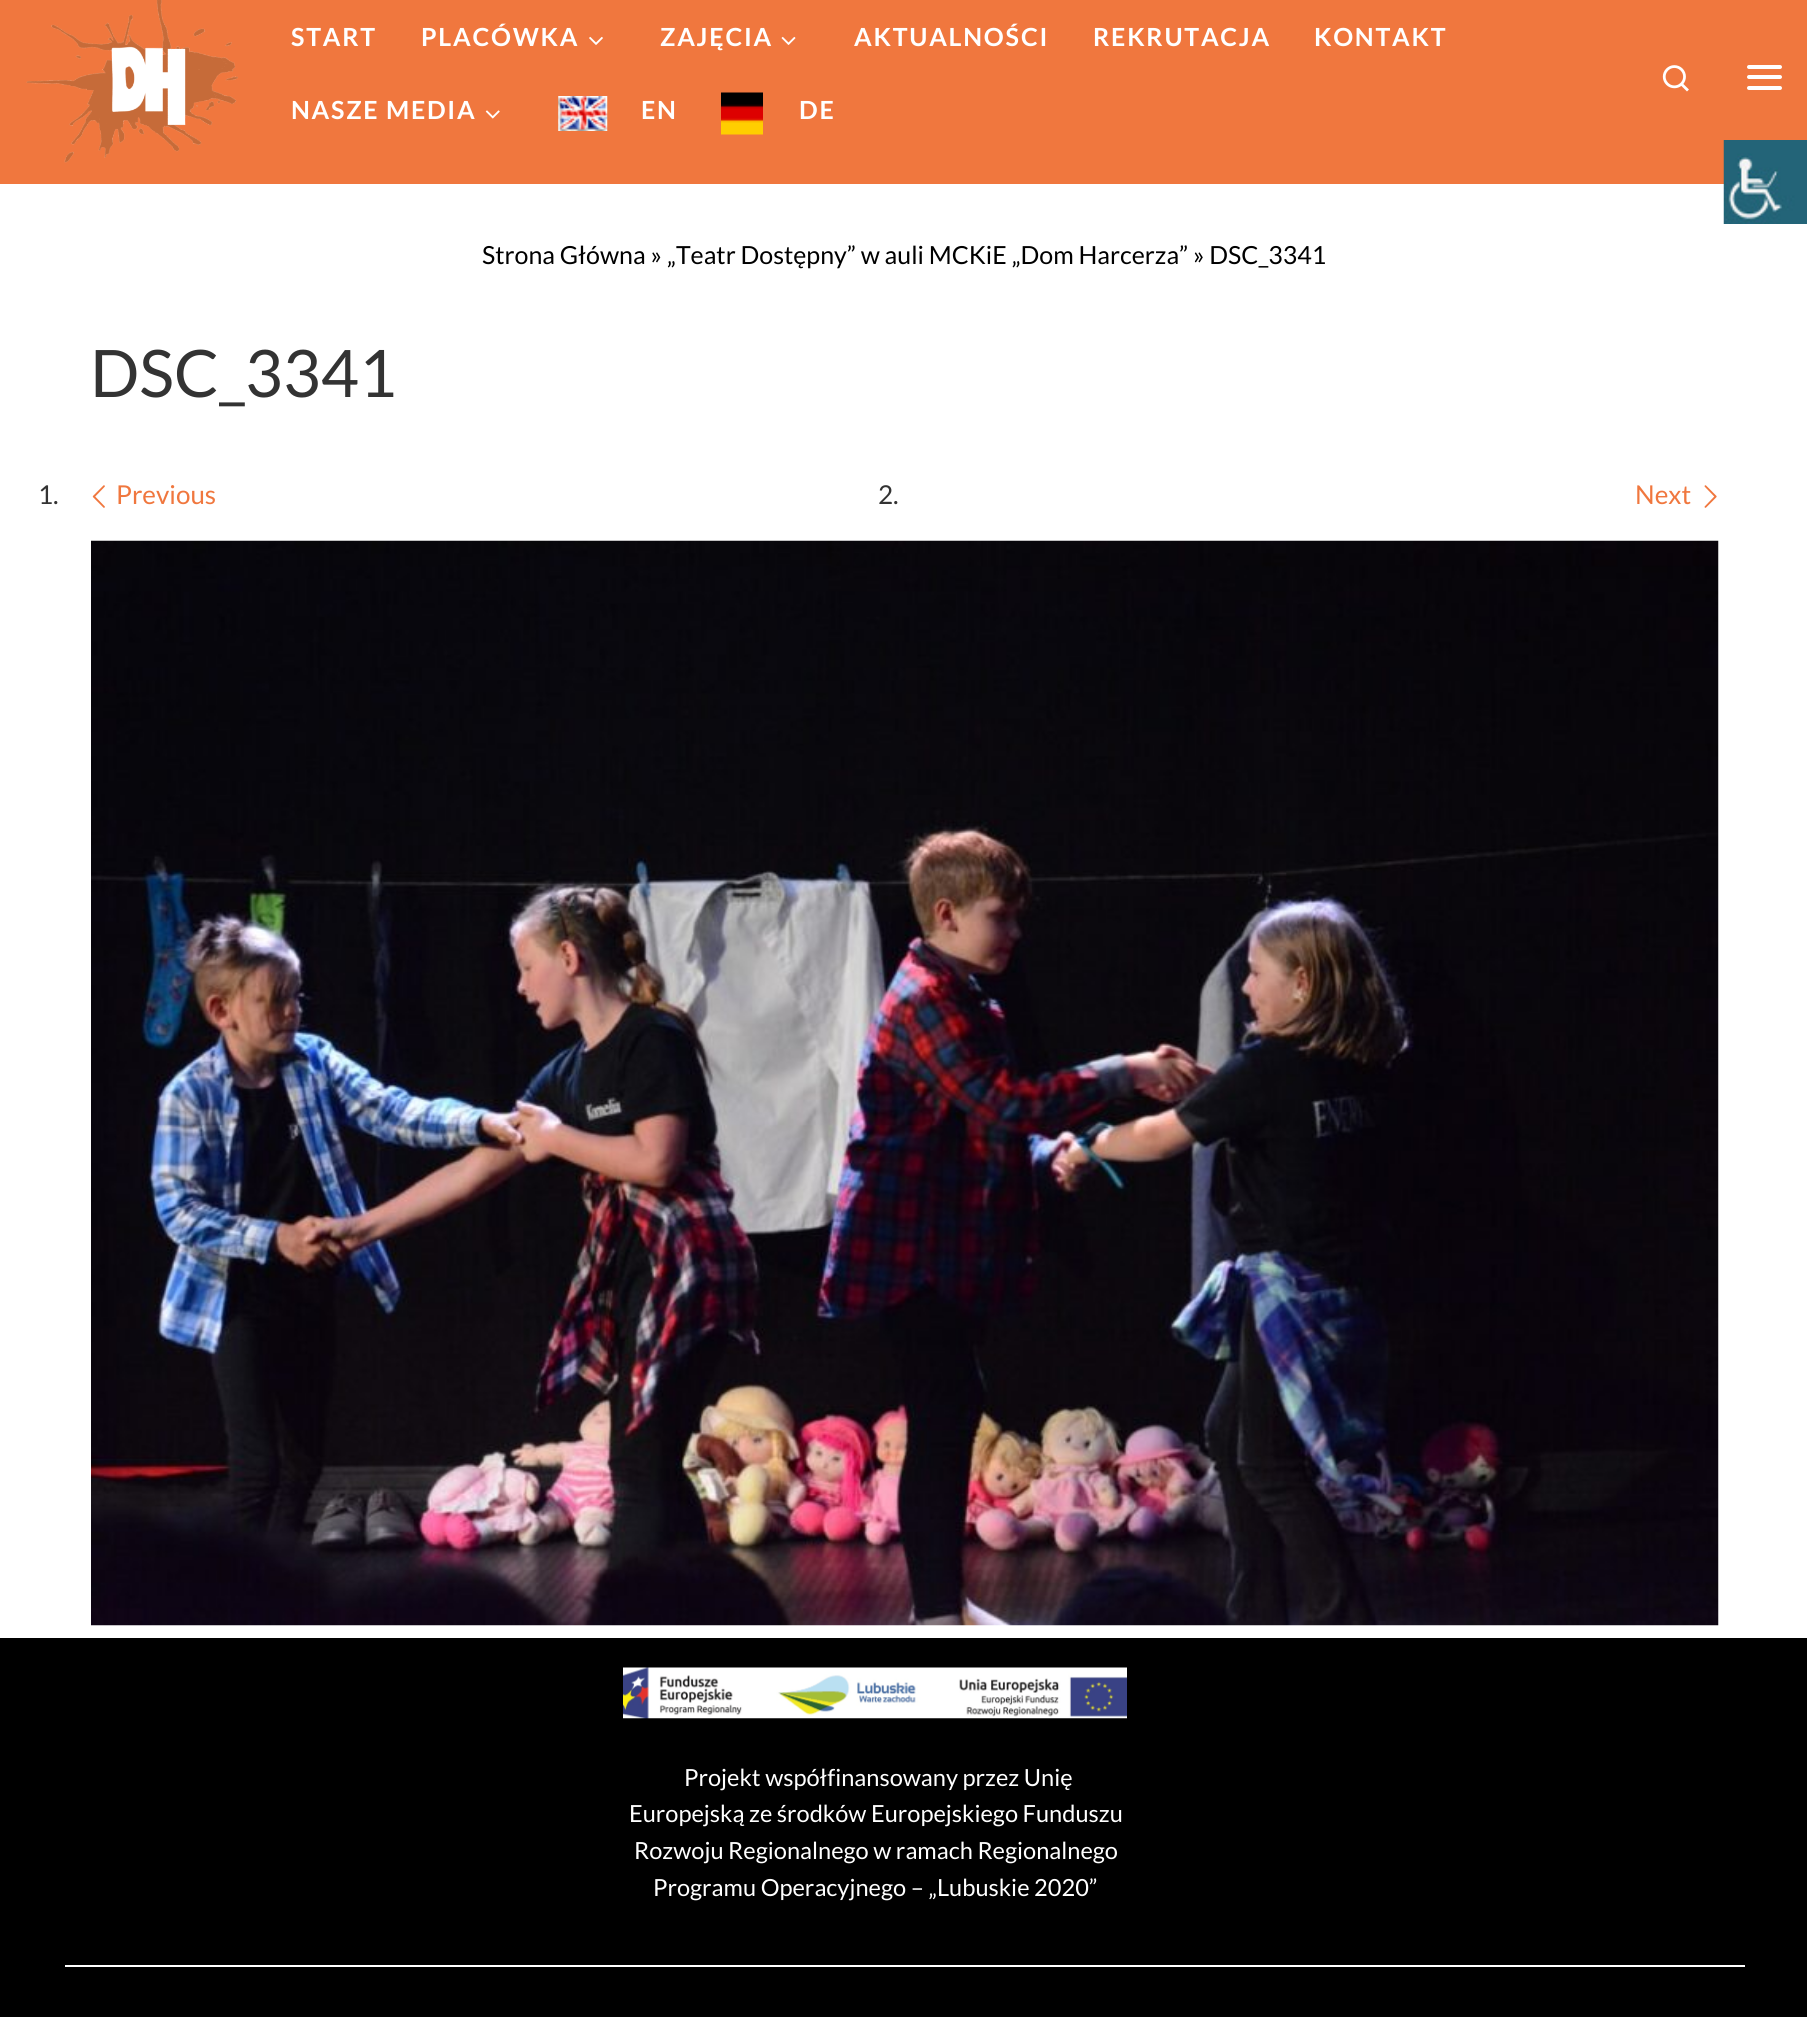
import math
import cairo

surface = cairo.ImageSurface(cairo.Format.RGB24, 1807, 2017)
ctx = cairo.Context(surface)
options = cairo.FontOptions()
options.set_hint_metrics(cairo.HintMetrics.OFF)
options.set_hint_style(cairo.HintStyle.NONE)
ctx.set_font_options(options)
ctx.set_miter_limit(4)


def ink(r, g, b):
    ctx.set_source_rgb(r / 255, g / 255, b / 255)


def write(x, y, s, family, size, color, bold=False, italic=False):
    ctx.select_font_face(family, cairo.FontSlant.ITALIC if italic else cairo.FontSlant.NORMAL, cairo.FontWeight.BOLD if bold else cairo.FontWeight.NORMAL)
    ctx.set_font_size(size)
    ink(*color)
    ctx.move_to(x, y)
    ctx.show_text(s)


def write_spaced(x, y, s, letter, word):
    ctx.move_to(x, y)
    for ch in s:
        ctx.show_text(ch)
        ctx.rel_move_to(letter + word * (ch == ' '), 0)


def block(x, y, w, h, *color):
    ink(*color)
    ctx.rectangle(x, y, w, h)
    ctx.fill()


def round_path(x, y, w, h, r):
    ctx.new_sub_path()
    for i, (u, v) in enumerate([(x + w - r, y + h - r), (x + r, y + h - r), (x + r, y + r), (x + w - r, y + r)]):
        ctx.arc(u, v, r, i * math.pi / 2, (i + 1) * math.pi / 2)
    ctx.close_path()


def paste(path, x, y, w, h):
    ctx.save()
    ctx.set_source_surface(cairo.ImageSurface.create_from_png(path), x, y)
    ctx.rectangle(x, y, w, h)
    ctx.fill()
    ctx.restore()


s1 = dict(family="Lato", size=24.95, color=(0, 0, 0))
s2 = dict(family="Lato", size=65.5, color=(51, 51, 51))
s3 = dict(family="Lato", size=26, color=(51, 51, 51))
s4 = dict(family="Lato", size=26, color=(240, 119, 62))
s5 = dict(family="Lato", size=23.6, color=(255, 255, 255))

ink(255, 255, 255)
ctx.paint()
block(0, 0, 1807, 184, 240, 119, 62)
paste("pic1.png", 26, 0, 212, 163)
ctx.select_font_face("Lato", cairo.FontSlant.NORMAL, cairo.FontWeight.BOLD)
ctx.set_font_size(24.95)
ink(255, 255, 255)
write_spaced(291, 46, "START", 1.75, 0)
write_spaced(421, 46, "PLACÓWKA", 1.75, 0)
paste("pic2.png", 589, 36, 14, 9)
write_spaced(660, 46, "ZAJĘCIA", 1.75, 0)
paste("pic3.png", 781, 36, 15, 9)
write_spaced(854, 46, "AKTUALNOŚCI", 1.75, 0)
write_spaced(1093, 46, "REKRUTACJA", 1.75, 0)
write_spaced(1314, 46, "KONTAKT", 1.75, 0)
write_spaced(291, 119, "NASZE MEDIA", 1.75, 0)
paste("pic4.png", 485, 110, 15, 9)
paste("pic5.png", 558, 96, 50, 35)
write_spaced(641, 119, "EN", 1.75, 0)
paste("pic6.png", 721, 92, 42, 43)
write_spaced(799, 119, "DE", 1.75, 0)
paste("pic7.png", 1662, 65, 27, 27)
round_path(1747, 65, 35, 4, 2)
ctx.fill()
round_path(1747, 75, 35, 4, 2)
ctx.fill()
round_path(1747, 86, 35, 4, 2)
ctx.fill()
write(482, 264, "Strona Główna » „Teatr Dostępny” w auli MCKiE „Dom Harcerza” » DSC_3341", **s1)
write(90, 397, "DSC_3341", **s2)
write(38, 504, "1.", **s3)
paste("pic8.png", 92, 485, 13, 23)
write(116, 504, "Previous", **s4)
write(878, 504, "2.", **s3)
write(1635, 504, "Next", **s4)
paste("pic9.png", 1704, 485, 13, 23)
paste("pic10.png", 91, 540, 1628, 1086)
block(0, 1638, 1807, 379, 0, 0, 0)
paste("pic11.png", 623, 1667, 504, 52)
write(684, 1786, "Projekt współfinansowany przez Unię", **s5)
write(629, 1822, "Europejską ze środków Europejskiego Funduszu", **s5)
write(634, 1859, "Rozwoju Regionalnego w ramach Regionalnego", **s5)
write(653, 1896, "Programu Operacyjnego – „Lubuskie 2020”", **s5)
block(65, 1965, 1680, 2, 255, 255, 255)
paste("pic12.png", 1723, 140, 84, 84)
surface.write_to_png("screenshot.png")
